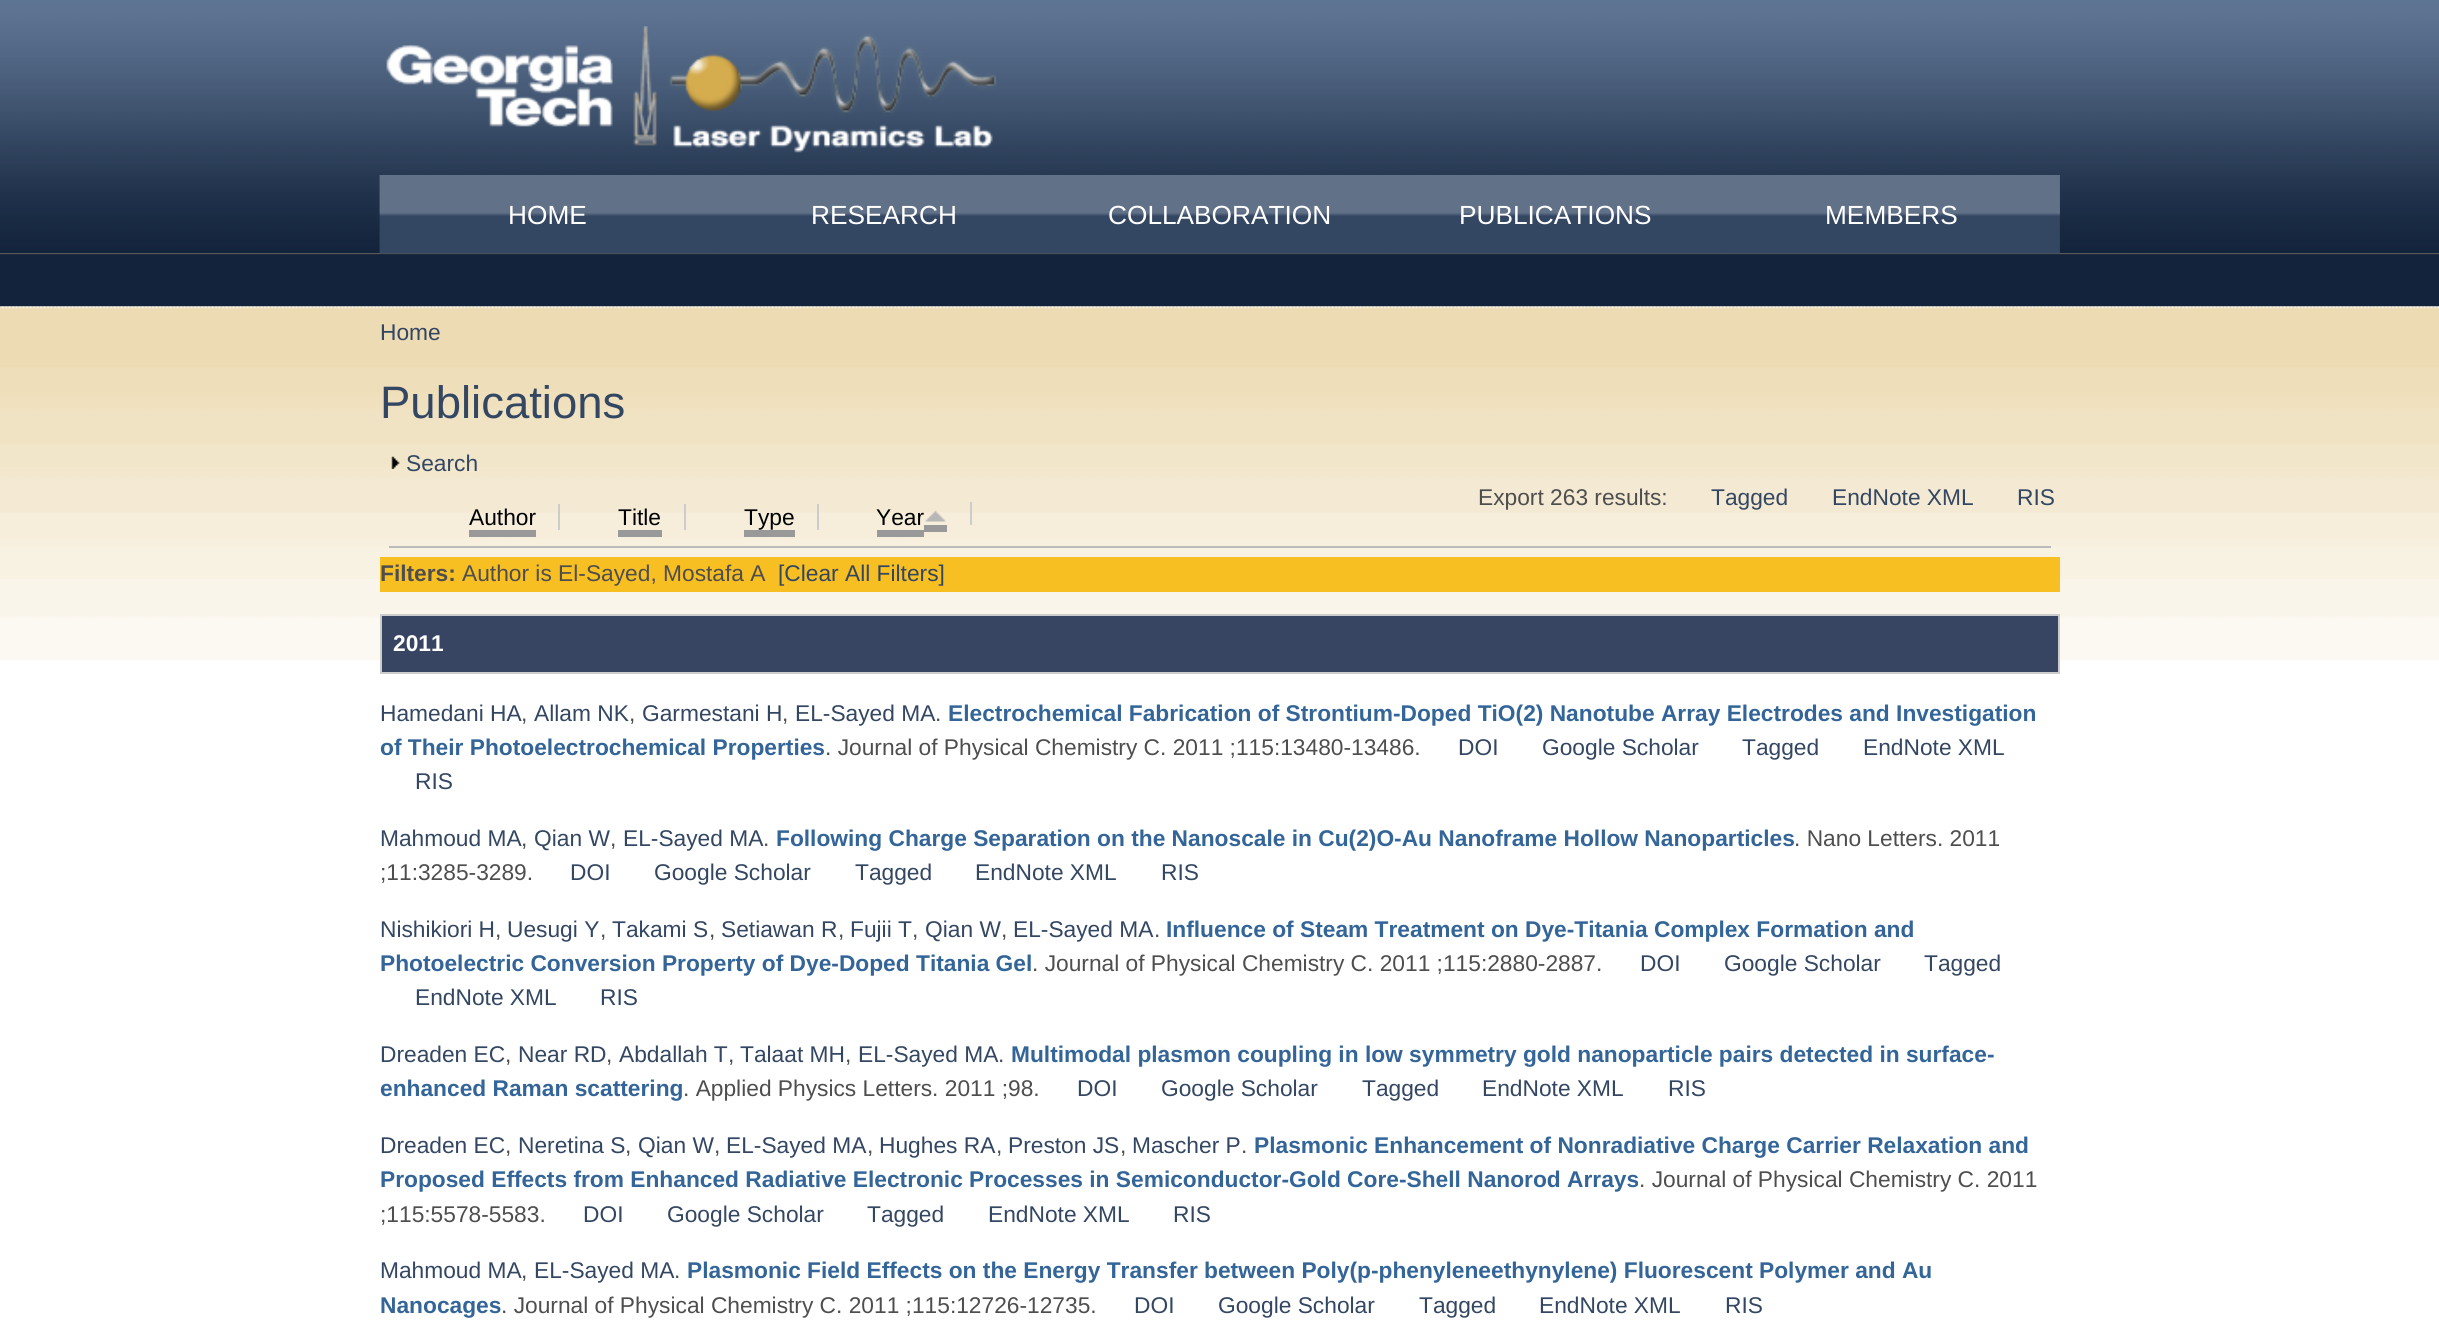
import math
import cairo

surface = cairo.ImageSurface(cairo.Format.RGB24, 2439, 1336)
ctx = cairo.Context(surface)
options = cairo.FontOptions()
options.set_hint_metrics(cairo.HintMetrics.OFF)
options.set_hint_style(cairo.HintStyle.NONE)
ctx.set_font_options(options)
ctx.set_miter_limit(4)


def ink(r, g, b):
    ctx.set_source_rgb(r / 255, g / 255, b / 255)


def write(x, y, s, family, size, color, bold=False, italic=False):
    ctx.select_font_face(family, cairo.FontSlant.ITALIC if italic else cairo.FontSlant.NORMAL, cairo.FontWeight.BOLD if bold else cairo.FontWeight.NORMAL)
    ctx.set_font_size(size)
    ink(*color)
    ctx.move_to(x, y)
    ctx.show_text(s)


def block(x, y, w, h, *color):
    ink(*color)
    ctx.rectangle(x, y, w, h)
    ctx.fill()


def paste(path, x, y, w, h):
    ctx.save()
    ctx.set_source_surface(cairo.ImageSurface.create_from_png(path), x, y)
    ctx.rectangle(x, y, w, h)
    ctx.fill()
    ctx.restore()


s1 = dict(family="Liberation Sans", size=26.25, color=(255, 255, 255))
s2 = dict(family="Liberation Sans", size=22.75, color=(51, 70, 98))
s3 = dict(family="Liberation Sans", size=45.5, color=(51, 70, 98))
s4 = dict(family="Liberation Sans", size=22.75, color=(79, 78, 78))
s5 = dict(family="Liberation Sans", size=22.75, color=(0, 0, 0))
s6 = dict(family="Liberation Sans", size=22.75, color=(79, 78, 78), bold=True)
s7 = dict(family="Liberation Sans", size=22.75, color=(255, 255, 255), bold=True)
s8 = dict(family="Liberation Sans", size=22.75, color=(51, 101, 153), bold=True)

ink(255, 255, 255)
ctx.paint()
paste("pic1.png", 0, 0, 2439, 254)
paste("pic2.png", 386, 26, 611, 127)
paste("pic3.png", 379, 175, 1681, 79)
paste("pic8.png", 0, 306, 2439, 355)
paste("pic7.png", 0, 253, 2439, 54)
paste("pic4.png", 379, 175, 337, 79)
write(508, 224, "HOME", **s1)
paste("pic5.png", 715, 253, 337, 1)
write(811, 224, "RESEARCH", **s1)
paste("pic5.png", 1051, 253, 337, 1)
write(1108, 224, "COLLABORATION", **s1)
paste("pic5.png", 1387, 253, 337, 1)
write(1459, 224, "PUBLICATIONS", **s1)
paste("pic6.png", 1723, 175, 337, 79)
write(1825, 224, "MEMBERS", **s1)
write(380, 340, "Home", **s2)
write(380, 418, "Publications", **s3)
paste("pic9.png", 391, 456, 9, 13)
write(406, 471, "Search", **s2)
write(1478, 505, "Export 263 results:", **s4)
write(1711, 505, "Tagged", **s2)
write(1832, 505, "EndNote XML", **s2)
write(2017, 505, "RIS", **s2)
block(389, 546, 1662, 2, 187, 187, 187)
write(469, 525, "Author", **s5)
block(558, 504, 2, 26, 204, 204, 204)
block(469, 530, 67, 7, 153, 153, 153)
write(618, 525, "Title", **s5)
block(684, 504, 2, 26, 204, 204, 204)
block(618, 530, 44, 7, 153, 153, 153)
write(744, 525, "Type", **s5)
block(817, 504, 2, 26, 204, 204, 204)
block(744, 530, 51, 7, 153, 153, 153)
block(924, 525, 23, 7, 153, 153, 153)
write(876, 525, "Year", **s5)
block(970, 502, 2, 23, 204, 204, 204)
block(877, 530, 47, 7, 153, 153, 153)
paste("pic10.png", 925, 510, 21, 12)
block(380, 557, 1680, 35, 247, 191, 33)
write(380, 581, "Filters:", **s6)
write(462, 581, "Author is El-Sayed, Mostafa A", **s4)
write(778, 581, "[Clear All Filters]", **s2)
ink(55, 69, 98)
ctx.rectangle(381, 615, 1678, 58)
ctx.fill_preserve()
ink(204, 204, 204)
ctx.stroke()
write(393, 651, "2011", **s7)
write(380, 721, "Hamedani HA", **s2)
write(521, 721, ",", **s4)
write(534, 721, "Allam NK", **s2)
write(629, 721, ",", **s4)
write(642, 721, "Garmestani H", **s2)
write(782, 721, ",", **s4)
write(795, 721, "EL-Sayed MA", **s2)
write(935, 721, ".", **s4)
write(948, 721, "Electrochemical Fabrication of Strontium-Doped TiO(2) Nanotube Array Electrodes and Investigation", **s8)
write(380, 755, "of Their Photoelectrochemical Properties", **s8)
write(825, 755, ". Journal of Physical Chemistry C. 2011 ;115:13480-13486.", **s4)
write(1458, 755, "DOI", **s2)
write(1542, 755, "Google Scholar", **s2)
write(1742, 755, "Tagged", **s2)
write(1863, 755, "EndNote XML", **s2)
write(415, 789, "RIS", **s2)
write(380, 846, "Mahmoud MA", **s2)
write(521, 846, ",", **s4)
write(534, 846, "Qian W", **s2)
write(610, 846, ",", **s4)
write(623, 846, "EL-Sayed MA", **s2)
write(763, 846, ".", **s4)
write(776, 846, "Following Charge Separation on the Nanoscale in Cu(2)O-Au Nanoframe Hollow Nanoparticles", **s8)
write(1794, 846, ". Nano Letters. 2011", **s4)
write(380, 880, ";11:3285-3289.", **s4)
write(570, 880, "DOI", **s2)
write(654, 880, "Google Scholar", **s2)
write(855, 880, "Tagged", **s2)
write(975, 880, "EndNote XML", **s2)
write(1161, 880, "RIS", **s2)
write(380, 937, "Nishikiori H", **s2)
write(495, 937, ",", **s4)
write(507, 937, "Uesugi Y", **s2)
write(600, 937, ",", **s4)
write(612, 937, "Takami S", **s2)
write(709, 937, ",", **s4)
write(721, 937, "Setiawan R", **s2)
write(838, 937, ",", **s4)
write(850, 937, "Fujii T", **s2)
write(912, 937, ",", **s4)
write(925, 937, "Qian W", **s2)
write(1001, 937, ",", **s4)
write(1013, 937, "EL-Sayed MA", **s2)
write(1154, 937, ".", **s4)
write(1166, 937, "Influence of Steam Treatment on Dye-Titania Complex Formation and", **s8)
write(380, 971, "Photoelectric Conversion Property of Dye-Doped Titania Gel", **s8)
write(1032, 971, ". Journal of Physical Chemistry C. 2011 ;115:2880-2887.", **s4)
write(1640, 971, "DOI", **s2)
write(1724, 971, "Google Scholar", **s2)
write(1924, 971, "Tagged", **s2)
write(415, 1005, "EndNote XML", **s2)
write(600, 1005, "RIS", **s2)
write(380, 1062, "Dreaden EC", **s2)
write(505, 1062, ",", **s4)
write(518, 1062, "Near RD", **s2)
write(606, 1062, ",", **s4)
write(619, 1062, "Abdallah T", **s2)
write(728, 1062, ",", **s4)
write(740, 1062, "Talaat MH", **s2)
write(845, 1062, ",", **s4)
write(858, 1062, "EL-Sayed MA", **s2)
write(998, 1062, ".", **s4)
write(1011, 1062, "Multimodal plasmon coupling in low symmetry gold nanoparticle pairs detected in surface-", **s8)
write(380, 1096, "enhanced Raman scattering", **s8)
write(683, 1096, ". Applied Physics Letters. 2011 ;98.", **s4)
write(1077, 1096, "DOI", **s2)
write(1161, 1096, "Google Scholar", **s2)
write(1362, 1096, "Tagged", **s2)
write(1482, 1096, "EndNote XML", **s2)
write(1668, 1096, "RIS", **s2)
write(380, 1153, "Dreaden EC", **s2)
write(505, 1153, ",", **s4)
write(518, 1153, "Neretina S", **s2)
write(625, 1153, ",", **s4)
write(638, 1153, "Qian W", **s2)
write(714, 1153, ",", **s4)
write(726, 1153, "EL-Sayed MA", **s2)
write(867, 1153, ",", **s4)
write(879, 1153, "Hughes RA", **s2)
write(996, 1153, ",", **s4)
write(1008, 1153, "Preston JS", **s2)
write(1120, 1153, ",", **s4)
write(1132, 1153, "Mascher P", **s2)
write(1241, 1153, ".", **s4)
write(1254, 1153, "Plasmonic Enhancement of Nonradiative Charge Carrier Relaxation and", **s8)
write(380, 1187, "Proposed Effects from Enhanced Radiative Electronic Processes in Semiconductor-Gold Core-Shell Nanorod Arrays", **s8)
write(1639, 1187, ". Journal of Physical Chemistry C. 2011", **s4)
write(380, 1222, ";115:5578-5583.", **s4)
write(583, 1222, "DOI", **s2)
write(667, 1222, "Google Scholar", **s2)
write(867, 1222, "Tagged", **s2)
write(988, 1222, "EndNote XML", **s2)
write(1173, 1222, "RIS", **s2)
write(380, 1278, "Mahmoud MA", **s2)
write(521, 1278, ",", **s4)
write(534, 1278, "EL-Sayed MA", **s2)
write(674, 1278, ".", **s4)
write(687, 1278, "Plasmonic Field Effects on the Energy Transfer between Poly(p-phenyleneethynylene) Fluorescent Polymer and Au", **s8)
write(380, 1313, "Nanocages", **s8)
write(501, 1313, ". Journal of Physical Chemistry C. 2011 ;115:12726-12735.", **s4)
write(1134, 1313, "DOI", **s2)
write(1218, 1313, "Google Scholar", **s2)
write(1419, 1313, "Tagged", **s2)
write(1539, 1313, "EndNote XML", **s2)
write(1725, 1313, "RIS", **s2)
surface.write_to_png("screenshot.png")
